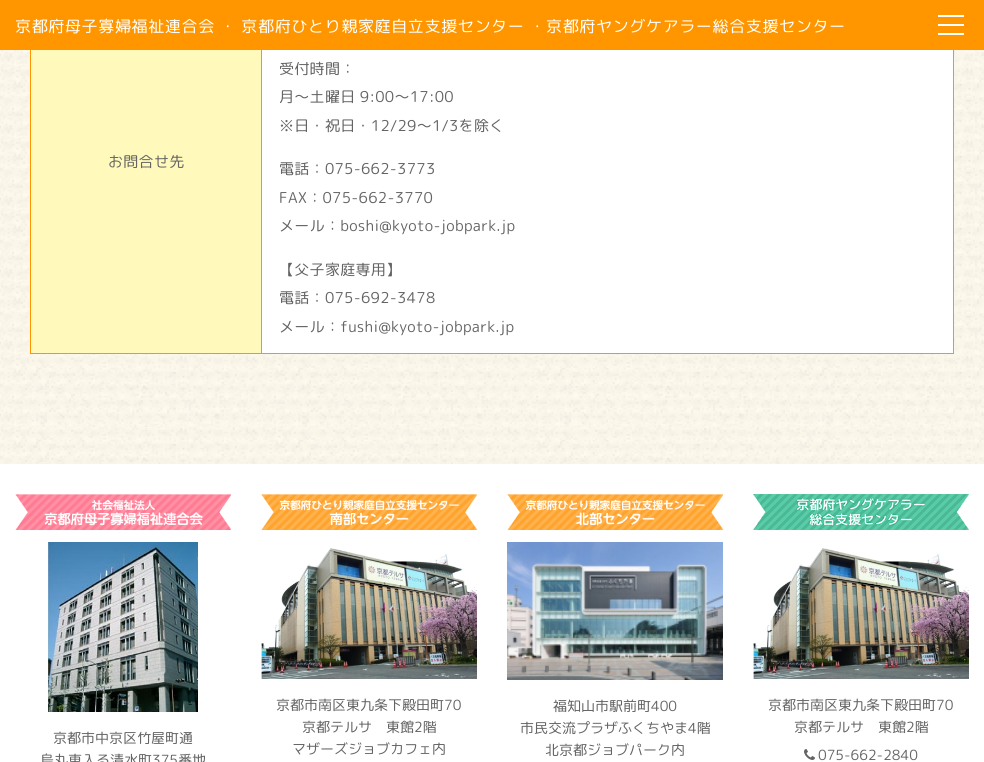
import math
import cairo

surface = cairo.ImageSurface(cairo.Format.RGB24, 984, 762)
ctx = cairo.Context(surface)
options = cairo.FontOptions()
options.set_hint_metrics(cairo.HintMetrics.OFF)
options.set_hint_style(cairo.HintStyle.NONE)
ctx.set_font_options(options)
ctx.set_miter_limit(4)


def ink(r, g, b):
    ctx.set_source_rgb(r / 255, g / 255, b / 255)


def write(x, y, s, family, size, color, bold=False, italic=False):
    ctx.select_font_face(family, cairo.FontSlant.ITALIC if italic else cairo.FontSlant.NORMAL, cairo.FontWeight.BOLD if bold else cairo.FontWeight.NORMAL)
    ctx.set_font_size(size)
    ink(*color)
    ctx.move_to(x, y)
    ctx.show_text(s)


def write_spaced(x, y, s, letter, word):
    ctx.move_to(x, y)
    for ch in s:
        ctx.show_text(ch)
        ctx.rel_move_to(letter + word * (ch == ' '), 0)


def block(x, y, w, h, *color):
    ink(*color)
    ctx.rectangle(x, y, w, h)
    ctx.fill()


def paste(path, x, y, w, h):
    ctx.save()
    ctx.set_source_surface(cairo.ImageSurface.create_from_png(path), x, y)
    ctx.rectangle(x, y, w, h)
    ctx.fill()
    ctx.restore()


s1 = dict(family="Rounded Mplus 1c", size=14, color=(100, 100, 100))

ink(255, 255, 255)
ctx.paint()
block(0, 0, 984, 50, 255, 150, 0)
ctx.select_font_face("Rounded Mplus 1c")
ctx.set_font_size(16)
ink(255, 255, 255)
write_spaced(15, 32, "京都府母子寡婦福祉連合会 ・ 京都府ひとり親家庭自立支援センター ・京都府ヤングケアラー総合支援センター", 0.65, 0)
block(938, 15, 26, 2, 255, 255, 255)
block(938, 24, 26, 2, 255, 255, 255)
block(938, 33, 26, 2, 255, 255, 255)
paste("pic1.png", 0, 50, 984, 414)
block(953, 50, 1, 304, 255, 150, 0)
block(30, 353, 924, 1, 255, 150, 0)
block(30, 50, 1, 304, 255, 150, 0)
block(31, 50, 230, 303, 255, 250, 188)
ctx.set_font_size(15)
ink(100, 100, 100)
write_spaced(108, 167, "お問合せ先", 0.3, 0)
block(262, 50, 691, 303, 255, 255, 255)
block(261, 50, 1, 304, 255, 150, 0)
ink(100, 100, 100)
write_spaced(279, 74, "受付時間：", 0.3, 0)
write_spaced(279, 102, "月～土曜日 9:00～17:00", 0.3, 0)
write_spaced(279, 131, "※日・祝日・12/29～1/3を除く", 0.3, 0)
write_spaced(279, 174, "電話：075-662-3773", 0.3, 0)
write_spaced(279, 203, "FAX：075-662-3770", 0.3, 0)
write_spaced(279, 231, "メール：boshi@kyoto-jobpark.jp", 0.3, 0)
write_spaced(279, 275, "【父子家庭専用】", 0.3, 0)
write_spaced(279, 303, "電話：075-692-3478", 0.3, 0)
write_spaced(279, 332, "メール：fushi@kyoto-jobpark.jp", 0.3, 0)
paste("pic2.png", 15, 494, 216, 36)
paste("pic3.png", 48, 542, 150, 170)
write(53, 743, "京都市中京区竹屋町通", **s1)
write(40, 765, "烏丸東入る清水町375番地", **s1)
paste("pic4.png", 261, 494, 216, 36)
paste("pic5.png", 261, 548, 216, 131)
write(276, 710, "京都市南区東九条下殿田町70", **s1)
write(302, 732, "京都テルサ　東館2階", **s1)
write(292, 754, "マザーズジョブカフェ内", **s1)
paste("pic6.png", 507, 494, 216, 36)
paste("pic7.png", 507, 542, 216, 138)
write(553, 711, "福知山市駅前町400", **s1)
write(520, 733, "市民交流プラザふくちやま4階", **s1)
write(545, 755, "北京都ジョブパーク内", **s1)
paste("pic8.png", 753, 494, 216, 36)
paste("pic9.png", 753, 548, 216, 131)
write(768, 710, "京都市南区東九条下殿田町70", **s1)
write(794, 732, "京都テルサ　東館2階", **s1)
paste("pic10.png", 804, 749, 11, 11)
write(818, 760, "075-662-2840", **s1)
surface.write_to_png("screenshot.png")
